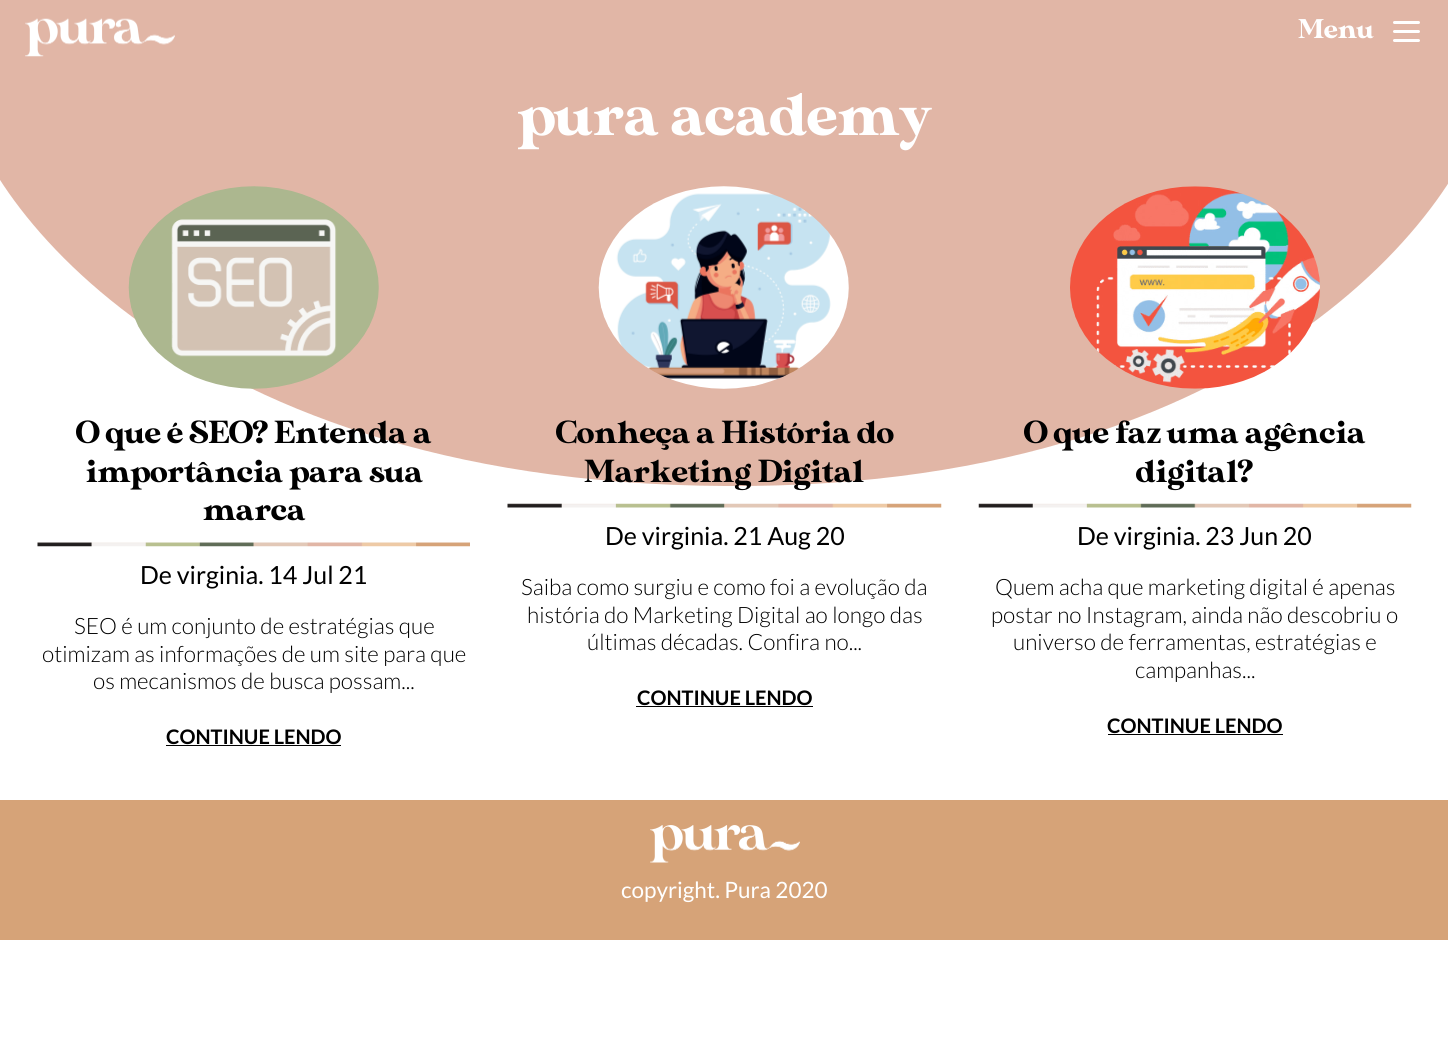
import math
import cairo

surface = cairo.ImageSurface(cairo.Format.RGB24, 1448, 1058)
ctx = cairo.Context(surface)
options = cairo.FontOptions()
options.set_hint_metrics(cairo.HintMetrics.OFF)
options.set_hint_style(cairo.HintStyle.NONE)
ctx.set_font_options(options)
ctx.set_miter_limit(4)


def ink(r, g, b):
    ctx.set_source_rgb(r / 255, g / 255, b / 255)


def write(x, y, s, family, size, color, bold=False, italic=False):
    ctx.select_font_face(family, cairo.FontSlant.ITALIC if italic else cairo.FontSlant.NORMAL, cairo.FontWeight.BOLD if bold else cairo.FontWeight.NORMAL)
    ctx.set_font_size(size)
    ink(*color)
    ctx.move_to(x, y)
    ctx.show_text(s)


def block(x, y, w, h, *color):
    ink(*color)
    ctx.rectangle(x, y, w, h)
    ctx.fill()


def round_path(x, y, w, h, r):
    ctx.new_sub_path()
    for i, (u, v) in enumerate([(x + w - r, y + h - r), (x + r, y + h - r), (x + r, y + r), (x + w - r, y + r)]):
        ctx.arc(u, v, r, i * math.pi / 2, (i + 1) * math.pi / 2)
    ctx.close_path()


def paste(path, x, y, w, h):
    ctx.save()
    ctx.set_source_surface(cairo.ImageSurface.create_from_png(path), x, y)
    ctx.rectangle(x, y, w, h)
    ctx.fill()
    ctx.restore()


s1 = dict(family="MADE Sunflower", size=27, color=(255, 255, 255))
s2 = dict(family="MADE Sunflower", size=60, color=(255, 255, 255))
s3 = dict(family="MADE Sunflower", size=31.9, color=(0, 0, 0))
s4 = dict(family="Lato", size=25, color=(0, 0, 0))
s5 = dict(family="Lato Light", size=22.5, color=(0, 0, 0))
s6 = dict(family="Lato", size=20, color=(0, 0, 0), bold=True)
s7 = dict(family="Lato", size=22.5, color=(255, 255, 255))

ink(255, 255, 255)
ctx.paint()
block(0, 0, 1448, 74, 225, 182, 166)
paste("pic1.png", 25, 18, 150, 39)
write(1298, 38, "Menu", **s1)
round_path(1393, 30, 27, 3, 1.5)
ctx.fill()
round_path(1393, 21, 27, 3, 1.5)
ctx.fill()
round_path(1393, 39, 27, 3, 1.5)
ctx.fill()
ink(225, 182, 166)
ctx.new_path()
ctx.move_to(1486, 91)
ctx.line_to(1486, 74)
ctx.line_to(-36, 74)
ctx.line_to(-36, 91)
ctx.curve_to(-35, 169, 157, 483, 725, 486)
ctx.curve_to(1293, 490, 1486, 167, 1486, 91)
ctx.close_path()
ctx.fill()
write(518, 135, "pura academy", **s2)
paste("pic2.png", 128, 186, 251, 203)
write(76, 443, "O que é SEO? Entenda a", **s3)
write(86, 482, "importância para sua", **s3)
write(203, 520, "marca", **s3)
paste("pic3.png", 37, 542, 433, 5)
write(140, 584, "De virginia. 14 Jul 21", **s4)
write(74, 634, "SEO é um conjunto de estratégias que", **s5)
write(42, 662, "otimizam as informações de um site para que", **s5)
write(93, 689, "os mecanismos de busca possam...", **s5)
write(166, 744, "CONTINUE LENDO", **s6)
block(166, 745, 175, 1, 0, 0, 0)
paste("pic4.png", 598, 186, 251, 203)
write(556, 443, "Conheça a História do", **s3)
write(584, 482, "Marketing Digital", **s3)
paste("pic5.png", 507, 503, 435, 5)
write(605, 545, "De virginia. 21 Aug 20", **s4)
write(521, 595, "Saiba como surgiu e como foi a evolução da", **s5)
write(527, 623, "história do Marketing Digital ao longo das", **s5)
write(587, 650, "últimas décadas. Confira no...", **s5)
write(637, 705, "CONTINUE LENDO", **s6)
block(636, 706, 177, 1, 0, 0, 0)
paste("pic6.png", 1070, 186, 250, 203)
write(1024, 443, "O que faz uma agência", **s3)
write(1136, 482, "digital?", **s3)
paste("pic7.png", 978, 503, 434, 5)
write(1077, 545, "De virginia. 23 Jun 20", **s4)
write(995, 595, "Quem acha que marketing digital é apenas", **s5)
write(991, 623, "postar no Instagram, ainda não descobriu o", **s5)
write(1013, 650, "universo de ferramentas, estratégias e", **s5)
write(1135, 678, "campanhas...", **s5)
write(1107, 733, "CONTINUE LENDO", **s6)
block(1108, 734, 175, 1, 0, 0, 0)
block(0, 800, 1448, 140, 214, 163, 120)
paste("pic8.png", 650, 825, 150, 38)
write(621, 898, "copyright. Pura 2020", **s7)
surface.write_to_png("screenshot.png")
